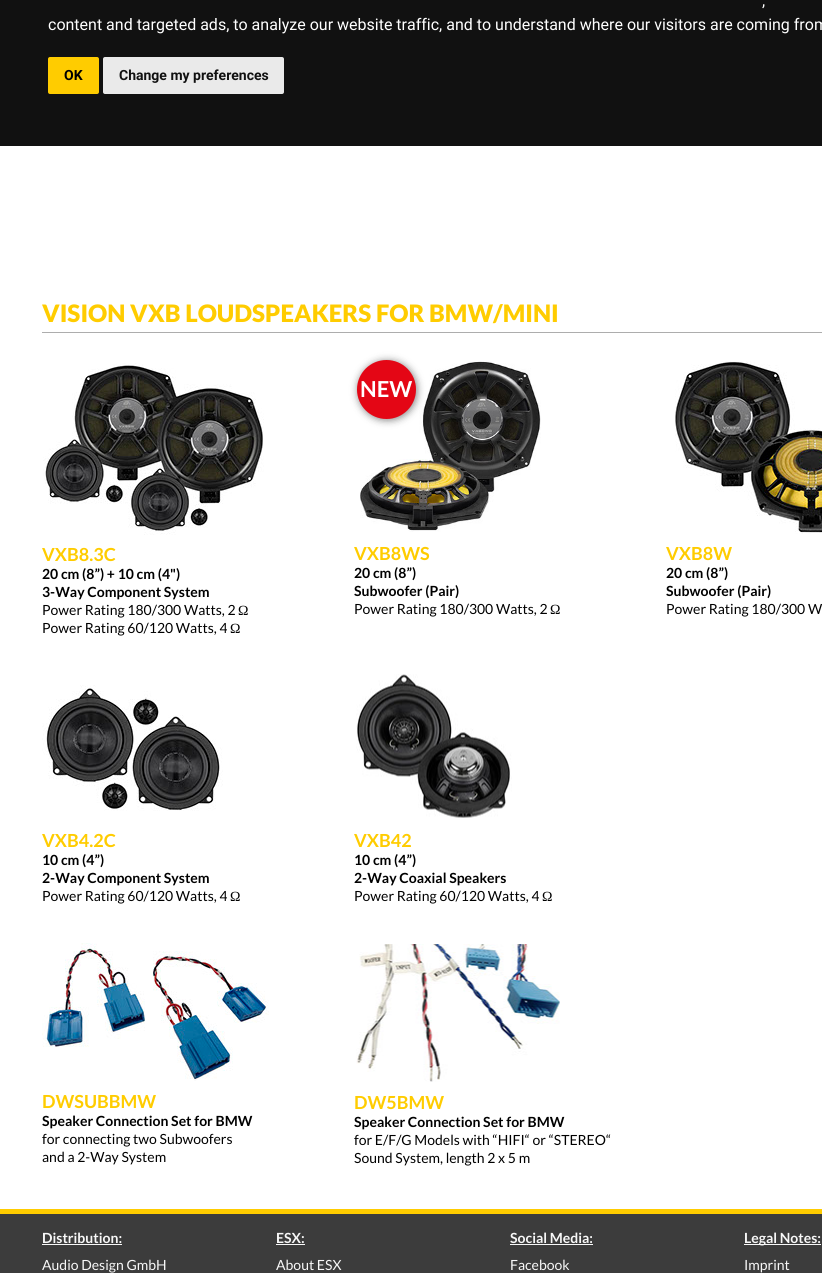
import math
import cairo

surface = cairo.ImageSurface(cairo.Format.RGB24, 822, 1273)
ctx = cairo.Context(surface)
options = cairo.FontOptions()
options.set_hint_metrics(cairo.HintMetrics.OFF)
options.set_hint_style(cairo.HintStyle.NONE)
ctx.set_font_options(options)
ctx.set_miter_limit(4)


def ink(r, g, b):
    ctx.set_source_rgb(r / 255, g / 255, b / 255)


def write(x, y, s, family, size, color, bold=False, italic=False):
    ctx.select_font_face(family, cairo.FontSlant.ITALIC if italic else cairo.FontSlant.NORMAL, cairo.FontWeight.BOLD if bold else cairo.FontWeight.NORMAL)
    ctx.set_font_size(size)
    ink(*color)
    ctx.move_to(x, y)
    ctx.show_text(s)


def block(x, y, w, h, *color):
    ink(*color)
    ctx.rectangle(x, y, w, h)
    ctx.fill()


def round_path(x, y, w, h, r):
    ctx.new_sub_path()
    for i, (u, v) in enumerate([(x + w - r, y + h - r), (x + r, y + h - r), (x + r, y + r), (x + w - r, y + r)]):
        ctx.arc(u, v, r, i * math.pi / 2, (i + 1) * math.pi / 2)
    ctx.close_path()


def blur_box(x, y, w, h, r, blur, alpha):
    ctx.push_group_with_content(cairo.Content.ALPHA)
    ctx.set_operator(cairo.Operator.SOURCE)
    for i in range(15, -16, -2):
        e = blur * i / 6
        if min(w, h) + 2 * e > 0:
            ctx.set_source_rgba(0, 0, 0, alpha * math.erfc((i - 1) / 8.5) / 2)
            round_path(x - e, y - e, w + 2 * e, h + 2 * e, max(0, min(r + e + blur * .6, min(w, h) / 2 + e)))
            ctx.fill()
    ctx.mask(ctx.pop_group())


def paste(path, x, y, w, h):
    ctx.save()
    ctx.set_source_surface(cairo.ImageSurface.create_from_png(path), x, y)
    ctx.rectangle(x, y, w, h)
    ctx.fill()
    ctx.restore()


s1 = dict(family="Roboto", size=16, color=(255, 255, 255))
s2 = dict(family="Roboto", size=14, color=(0, 0, 0), bold=True)
s3 = dict(family="Roboto", size=14, color=(17, 17, 17), bold=True)
s4 = dict(family="Lato Black", size=24, color=(255, 204, 0))
s5 = dict(family="Lato", size=22, color=(255, 255, 255), bold=True)
s6 = dict(family="Lato", size=18, color=(255, 204, 0), bold=True)
s7 = dict(family="Lato", size=14, color=(0, 0, 0), bold=True)
s8 = dict(family="Lato", size=14, color=(0, 0, 0))
s9 = dict(family="Liberation Serif", size=14, color=(0, 0, 0))
s10 = dict(family="Lato", size=14, color=(248, 248, 248), bold=True)
s11 = dict(family="Lato", size=14, color=(248, 248, 248))

ink(255, 255, 255)
ctx.paint()
block(0, 0, 822, 146, 17, 17, 17)
write(762, 6, ",", **s1)
write(48, 30, "content and targeted ads, to analyze our website traffic, and to understand where our visitors are coming from", **s1)
ink(255, 204, 0)
round_path(48, 57, 51, 37, 2)
ctx.fill()
write(64, 80, "OK", **s2)
ink(234, 234, 234)
round_path(103, 57, 181, 37, 2)
ctx.fill()
write(119, 80, "Change my preferences", **s3)
write(42, 322, "VISION VXB LOUDSPEAKERS FOR BMW/MINI", **s4)
block(42, 332, 780, 1, 173, 173, 173)
paste("pic1.png", 43, 363, 221, 172)
paste("pic2.png", 360, 361, 181, 171)
ink(0, 0, 0)
blur_box(358, 361, 59, 59, 29.5, 4, 0.5)
ink(228, 6, 21)
ctx.arc(386.5, 389.5, 29.5, 0, 2 * math.pi)
ctx.fill()
write(360, 397, "NEW", **s5)
paste("pic3.png", 675, 361, 147, 173)
write(42, 561, "VXB8.3C", **s6)
write(42, 579, "20 cm (8”) + 10 cm (4\")", **s7)
write(42, 597, "3-Way Component System", **s7)
write(42, 615, "Power Rating 180/300 Watts, 2", **s8)
write(238, 615, "Ω", **s9)
write(42, 633, "Power Rating 60/120 Watts, 4", **s8)
write(230, 633, "Ω", **s9)
write(354, 560, "VXB8WS", **s6)
write(354, 578, "20 cm (8”)", **s7)
write(354, 596, "Subwoofer (Pair)", **s7)
write(354, 614, "Power Rating 180/300 Watts, 2", **s8)
write(550, 614, "Ω", **s9)
write(666, 560, "VXB8W", **s6)
write(666, 578, "20 cm (8”)", **s7)
write(666, 596, "Subwoofer (Pair)", **s7)
write(666, 614, "Power Rating 180/300 W", **s8)
paste("pic4.png", 42, 685, 181, 126)
paste("pic5.png", 356, 674, 156, 144)
write(42, 847, "VXB4.2C", **s6)
write(42, 865, "10 cm (4”)", **s7)
write(42, 883, "2-Way Component System", **s7)
write(42, 901, "Power Rating 60/120 Watts, 4", **s8)
write(230, 901, "Ω", **s9)
write(354, 847, "VXB42", **s6)
write(354, 865, "10 cm (4”)", **s7)
write(354, 883, "2-Way Coaxial Speakers", **s7)
write(354, 901, "Power Rating 60/120 Watts, 4", **s8)
write(542, 901, "Ω", **s9)
paste("pic6.png", 42, 943, 227, 138)
paste("pic7.png", 356, 944, 204, 138)
write(42, 1108, "DWSUBBMW", **s6)
write(42, 1126, "Speaker Connection Set for BMW", **s7)
write(42, 1144, "for connecting two Subwoofers", **s8)
write(42, 1162, "and a 2-Way System", **s8)
write(354, 1109, "DW5BMW", **s6)
write(354, 1127, "Speaker Connection Set for BMW", **s7)
write(354, 1145, "for E/F/G Models with “HIFI“ or “STEREO“", **s8)
write(354, 1163, "Sound System, length 2 x 5 m", **s8)
block(0, 1209, 822, 5, 255, 204, 0)
block(0, 1214, 822, 59, 60, 60, 60)
write(42, 1243, "Distribution:", **s10)
block(42, 1244, 80, 1, 248, 248, 248)
write(42, 1270, "Audio Design GmbH", **s11)
write(276, 1243, "ESX:", **s10)
block(276, 1244, 29, 1, 248, 248, 248)
write(276, 1270, "About ESX", **s11)
write(510, 1243, "Social Media:", **s10)
block(510, 1244, 83, 1, 248, 248, 248)
write(510, 1270, "Facebook", **s11)
block(744, 1244, 77, 1, 248, 248, 248)
write(744, 1243, "Legal Notes:", **s10)
write(744, 1270, "Imprint", **s11)
surface.write_to_png("screenshot.png")
